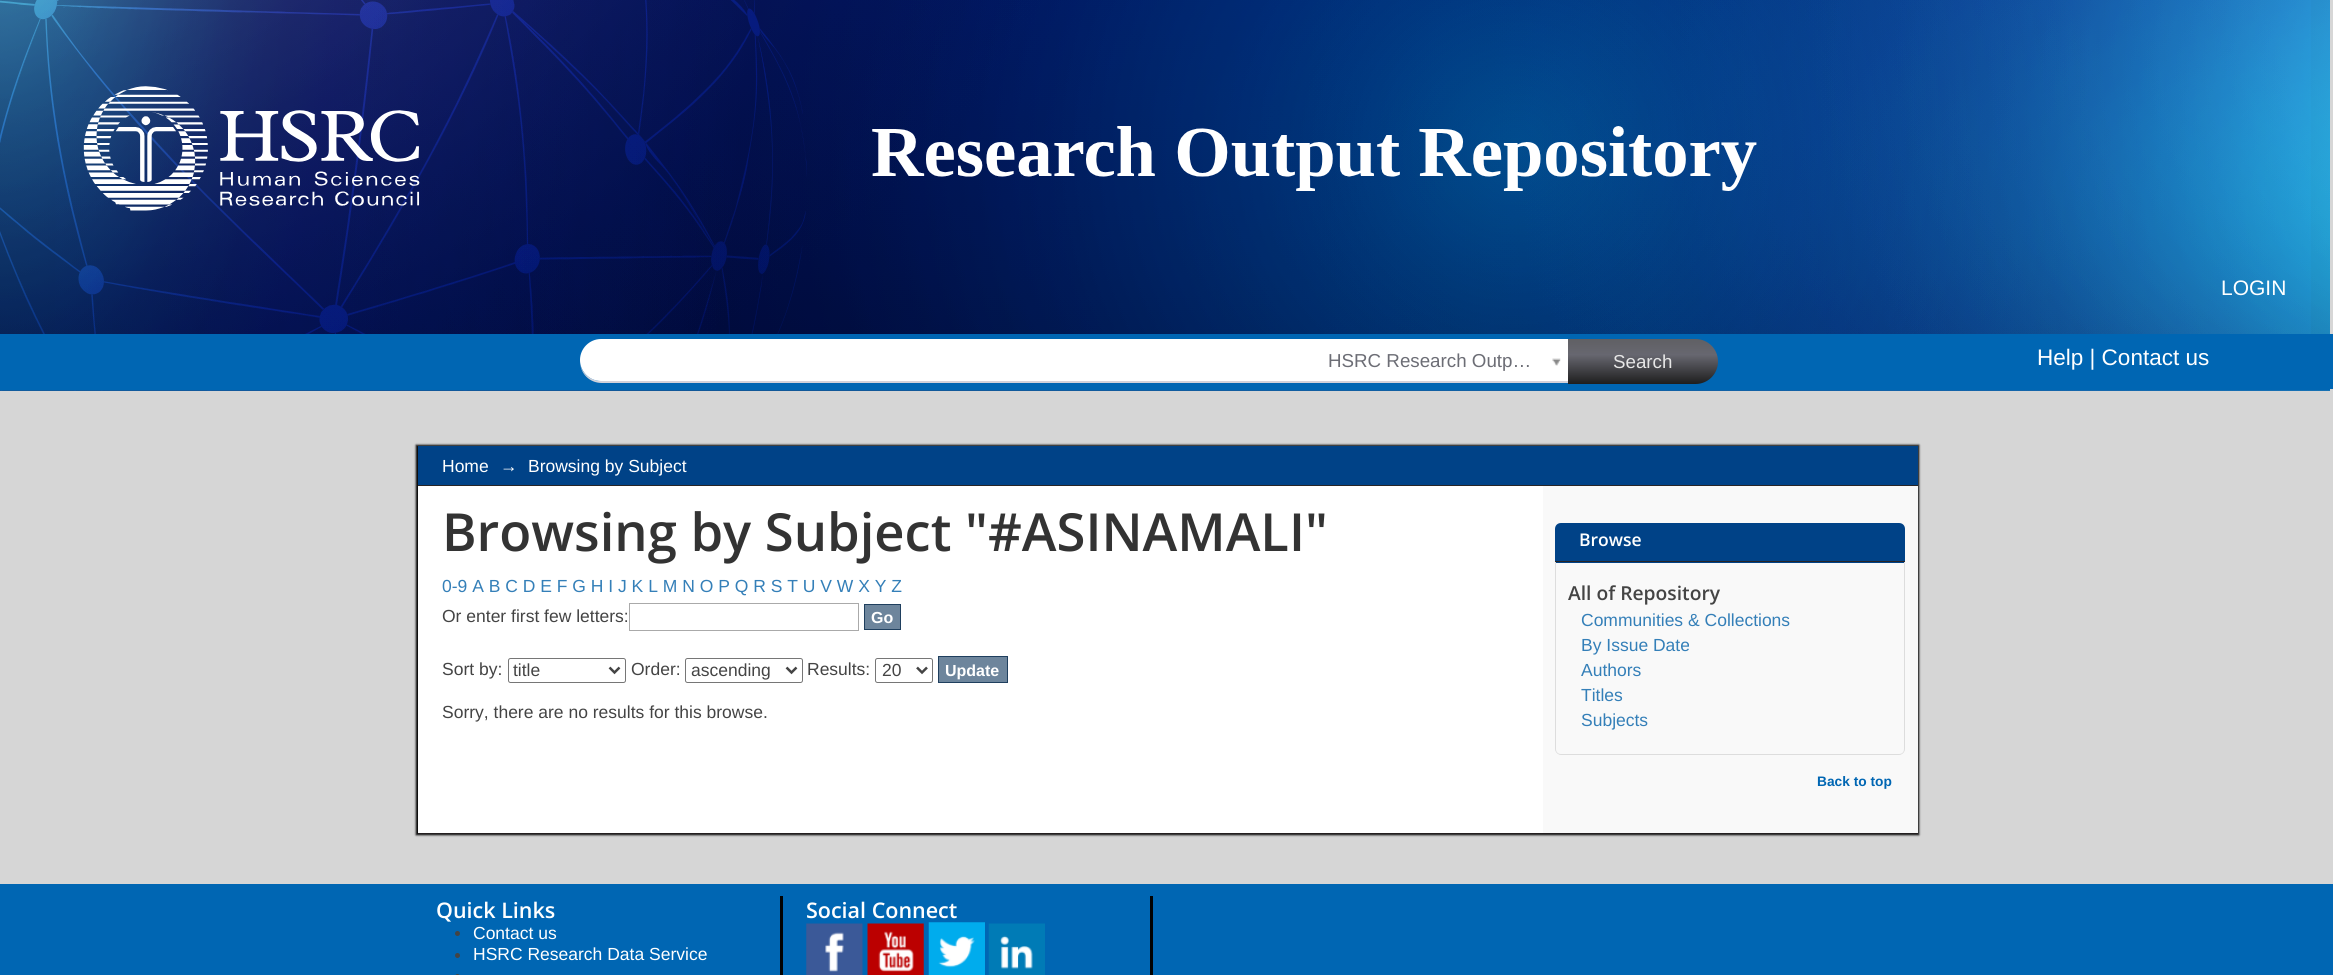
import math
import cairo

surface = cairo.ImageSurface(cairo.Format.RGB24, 2333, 975)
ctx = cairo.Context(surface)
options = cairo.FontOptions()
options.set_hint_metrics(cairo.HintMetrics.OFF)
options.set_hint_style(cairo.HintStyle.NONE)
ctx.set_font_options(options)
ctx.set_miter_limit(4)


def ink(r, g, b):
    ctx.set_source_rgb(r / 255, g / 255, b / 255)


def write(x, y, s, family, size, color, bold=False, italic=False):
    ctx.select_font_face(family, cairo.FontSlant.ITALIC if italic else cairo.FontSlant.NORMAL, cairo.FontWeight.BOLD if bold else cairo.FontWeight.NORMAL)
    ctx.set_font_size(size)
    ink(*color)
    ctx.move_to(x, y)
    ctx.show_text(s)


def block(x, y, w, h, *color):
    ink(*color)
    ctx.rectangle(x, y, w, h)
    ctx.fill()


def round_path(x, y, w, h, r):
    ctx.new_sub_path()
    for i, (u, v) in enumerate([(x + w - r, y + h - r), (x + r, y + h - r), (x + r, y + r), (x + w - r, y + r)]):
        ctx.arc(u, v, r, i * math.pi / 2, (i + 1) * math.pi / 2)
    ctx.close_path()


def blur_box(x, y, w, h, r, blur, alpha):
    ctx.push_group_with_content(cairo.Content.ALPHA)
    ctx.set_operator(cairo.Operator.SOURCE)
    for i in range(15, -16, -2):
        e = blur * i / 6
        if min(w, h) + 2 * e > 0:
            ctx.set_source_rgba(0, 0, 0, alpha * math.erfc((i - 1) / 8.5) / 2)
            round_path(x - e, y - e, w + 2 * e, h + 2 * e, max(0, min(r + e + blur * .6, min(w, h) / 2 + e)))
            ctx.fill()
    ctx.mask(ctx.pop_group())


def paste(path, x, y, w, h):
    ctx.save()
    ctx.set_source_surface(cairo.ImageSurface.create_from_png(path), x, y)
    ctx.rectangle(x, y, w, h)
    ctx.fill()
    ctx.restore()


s1 = dict(family="Liberation Sans", size=21, color=(255, 255, 255))
s2 = dict(family="Liberation Sans", size=18.75, color=(108, 109, 117))
s3 = dict(family="Liberation Sans", size=18.75, color=(230, 230, 230))
s4 = dict(family="Liberation Sans", size=22.5, color=(255, 255, 255))
s5 = dict(family="Liberation Sans", size=17.5, color=(255, 255, 255))
s6 = dict(family="Open Sans SemiBold", size=52.5, color=(51, 51, 51))
s7 = dict(family="Liberation Sans", size=17.5, color=(52, 127, 184))
s8 = dict(family="Liberation Sans", size=17.5, color=(68, 68, 68))
s9 = dict(family="Liberation Sans", size=16, color=(255, 255, 255), bold=True)
s10 = dict(family="Open Sans SemiBold", size=17.5, color=(255, 255, 255))
s11 = dict(family="Open Sans SemiBold", size=19.25, color=(68, 68, 68))
s12 = dict(family="Liberation Sans", size=13.75, color=(0, 102, 179), bold=True)
s13 = dict(family="Open Sans SemiBold", size=21.5, color=(255, 255, 255))

ink(214, 214, 214)
ctx.paint()
paste("pic1.png", 0, 0, 2330, 391)
write(2221, 295, "LOGIN", **s1)
block(0, 334, 2333, 55, 0, 102, 179)
ink(210, 210, 218)
ctx.new_path()
ctx.move_to(580, 361)
ctx.curve_to(580, 373, 589, 383, 602, 383)
ctx.line_to(1569, 383)
ctx.curve_to(1570, 383, 1570, 381, 1570, 380)
ctx.curve_to(1570, 381, 1569, 381, 1569, 381)
ctx.line_to(601, 381)
ctx.curve_to(590, 381, 580, 372, 580, 361)
ctx.close_path()
ctx.fill()
ink(255, 255, 255)
ctx.new_path()
ctx.move_to(601, 339)
ctx.line_to(1569, 339)
ctx.curve_to(1569.5, 339, 1570, 339.5, 1570, 340)
ctx.line_to(1570, 380)
ctx.curve_to(1570, 380.5, 1569.5, 381, 1569, 381)
ctx.line_to(601, 381)
ctx.curve_to(589.5, 381, 580, 371.5, 580, 360)
ctx.curve_to(580, 348.5, 589.5, 339, 601, 339)
ctx.close_path()
ctx.fill()
write(1328, 367, "HSRC Research Outp…", **s2)
paste("pic2.png", 1552, 358, 9, 8)
gradient = cairo.LinearGradient(1643, 339, 1643, 384)
gradient.add_color_stop_rgba(0, 0.376, 0.376, 0.392, 1)
gradient.add_color_stop_rgba(0.35, 0.404, 0.404, 0.439, 1)
gradient.add_color_stop_rgba(1, 0.118, 0.118, 0.118, 1)
ctx.set_source(gradient)
ctx.new_path()
ctx.move_to(1568, 339)
ctx.line_to(1695.5, 339)
ctx.curve_to(1708, 339, 1718, 349, 1718, 361.5)
ctx.curve_to(1718, 374, 1708, 384, 1695.5, 384)
ctx.line_to(1568, 384)
ctx.close_path()
ctx.fill()
write(1613, 368, "Search", **s3)
write(2037, 365, "Help | Contact us", **s4)
ink(0, 0, 0)
blur_box(416, 445, 1503, 390, 0, 1, 1)
block(418, 446, 1500, 39, 0, 66, 135)
block(418, 485, 1500, 1, 41, 37, 38)
write(442, 472, "Home", **s5)
write(500, 472, "→", **s5)
write(528, 472, "Browsing by Subject", **s5)
block(418, 486, 1125, 347, 255, 255, 255)
block(418, 833, 1500, 1, 35, 31, 32)
write(442, 551, "Browsing by Subject \"#ASINAMALI\"", **s6)
write(442, 592, "0-9 A B C D E F G H I J K L M N O P Q R S T U V W X Y Z", **s7)
write(442, 622, "Or enter first few letters:", **s8)
ctx.rectangle(629.5, 603.5, 229, 27)
ink(170, 170, 170)
ctx.set_line_width(1)
ctx.stroke()
ink(109, 133, 156)
ctx.rectangle(864.5, 604.5, 36, 25)
ctx.fill_preserve()
ink(31, 63, 94)
ctx.stroke()
write(871, 623, "Go", **s9)
write(442, 675, "Sort by:", **s8)
round_path(508.5, 658.5, 117, 24, 2)
ink(118, 118, 118)
ctx.stroke()
ctx.new_path()
ctx.move_to(609.5, 667.5)
ctx.line_to(614.5, 672.5)
ctx.line_to(619.5, 667.5)
ink(68, 68, 68)
ctx.set_line_width(2.5)
ctx.stroke()
write(513, 676, "title", **s8)
write(631, 675, "Order:", **s8)
round_path(685.5, 658.5, 117, 24, 2)
ink(118, 118, 118)
ctx.set_line_width(1)
ctx.stroke()
ctx.new_path()
ctx.move_to(786.5, 667.5)
ctx.line_to(791.5, 672.5)
ctx.line_to(796.5, 667.5)
ink(68, 68, 68)
ctx.set_line_width(2.5)
ctx.stroke()
write(691, 676, "ascending", **s8)
write(807, 675, "Results:", **s8)
round_path(875.5, 658.5, 57, 24, 2)
ink(118, 118, 118)
ctx.set_line_width(1)
ctx.stroke()
ctx.new_path()
ctx.move_to(917, 667.5)
ctx.line_to(922, 672.5)
ctx.line_to(927, 667.5)
ink(68, 68, 68)
ctx.set_line_width(2.5)
ctx.stroke()
write(882, 676, "20", **s8)
ink(109, 133, 156)
ctx.rectangle(938.5, 656.5, 69, 26)
ctx.fill_preserve()
ink(31, 63, 94)
ctx.set_line_width(1)
ctx.stroke()
write(945, 676, "Update", **s9)
write(442, 718, "Sorry, there are no results for this browse.", **s8)
block(1543, 486, 375, 347, 249, 249, 249)
ink(0, 66, 135)
ctx.new_path()
ctx.move_to(1561, 523)
ctx.line_to(1899, 523)
ctx.curve_to(1902.5, 523, 1905, 525.5, 1905, 529)
ctx.line_to(1905, 563)
ctx.line_to(1555, 563)
ctx.line_to(1555, 529)
ctx.curve_to(1555, 525.5, 1557.5, 523, 1561, 523)
ctx.close_path()
ctx.fill()
block(1555, 561, 350, 1, 41, 37, 38)
write(1579, 546, "Browse", **s10)
ink(221, 221, 221)
ctx.set_fill_rule(cairo.FillRule.EVEN_ODD)
ctx.new_path()
ctx.move_to(1555, 562)
ctx.line_to(1905, 562)
ctx.line_to(1905, 749)
ctx.curve_to(1905, 752, 1902, 755, 1899, 755)
ctx.line_to(1561, 755)
ctx.curve_to(1558, 755, 1555, 752, 1555, 749)
ctx.close_path()
ctx.move_to(1556, 562)
ctx.line_to(1904, 562)
ctx.line_to(1904, 749)
ctx.curve_to(1904, 752, 1902, 754, 1899, 754)
ctx.line_to(1561, 754)
ctx.curve_to(1558, 754, 1556, 752, 1556, 749)
ctx.close_path()
ctx.fill()
write(1568, 600, "All of Repository", **s11)
write(1581, 626, "Communities & Collections", **s7)
write(1581, 651, "By Issue Date", **s7)
write(1581, 676, "Authors", **s7)
write(1581, 701, "Titles", **s7)
write(1581, 726, "Subjects", **s7)
write(1817, 786, "Back to top", **s12)
block(0, 884, 2333, 91, 0, 102, 179)
block(780, 896, 3, 79, 2, 2, 2)
write(436, 918, "Quick Links", **s13)
ink(68, 68, 68)
ctx.new_path()
ctx.arc(457.5, 933.5, 2.5, 0, 2 * math.pi)
ctx.fill()
write(473, 939, "Contact us", **s5)
ink(68, 68, 68)
ctx.new_path()
ctx.arc(457.5, 955.5, 2.5, 0, 2 * math.pi)
ctx.fill()
write(473, 960, "HSRC Research Data Service", **s5)
ink(68, 68, 68)
round_path(455, 974, 5, 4, 2.5)
ctx.fill()
block(1150, 896, 3, 79, 2, 2, 2)
write(806, 918, "Social Connect", **s13)
paste("pic3.png", 806, 923, 57, 52)
paste("pic4.png", 867, 923, 57, 52)
paste("pic5.png", 928, 922, 57, 53)
paste("pic6.png", 988, 923, 57, 52)
surface.write_to_png("screenshot.png")
